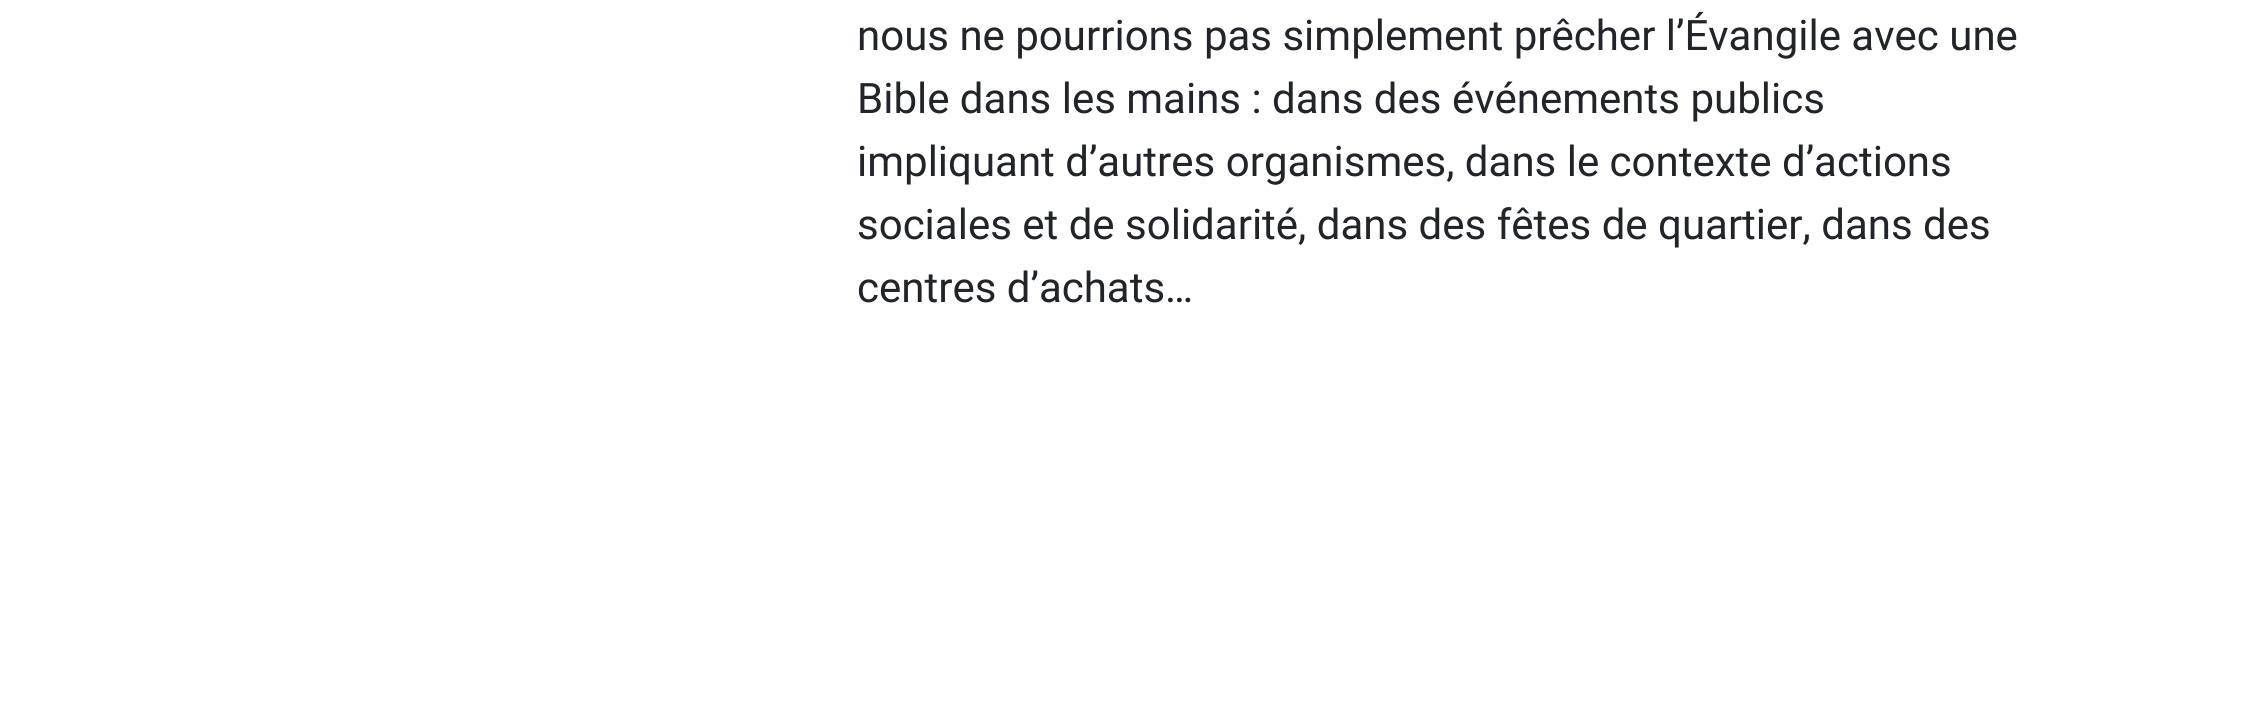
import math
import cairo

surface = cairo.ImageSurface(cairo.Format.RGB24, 2246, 723)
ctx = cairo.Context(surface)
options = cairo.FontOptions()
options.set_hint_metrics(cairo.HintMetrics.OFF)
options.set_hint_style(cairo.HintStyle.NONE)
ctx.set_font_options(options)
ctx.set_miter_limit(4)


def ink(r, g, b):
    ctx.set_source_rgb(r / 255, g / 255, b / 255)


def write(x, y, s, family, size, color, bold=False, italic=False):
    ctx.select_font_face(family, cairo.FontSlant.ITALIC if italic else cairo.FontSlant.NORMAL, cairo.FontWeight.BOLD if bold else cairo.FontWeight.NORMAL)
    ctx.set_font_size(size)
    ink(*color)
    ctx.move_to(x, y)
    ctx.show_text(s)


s1 = dict(family="Roboto", size=42, color=(33, 37, 41))

ink(255, 255, 255)
ctx.paint()
write(857, 50, "nous ne pourrions pas simplement prêcher l’Évangile avec une", **s1)
write(857, 113, "Bible dans les mains : dans des événements publics", **s1)
write(857, 176, "impliquant d’autres organismes, dans le contexte d’actions", **s1)
write(857, 239, "sociales et de solidarité, dans des fêtes de quartier, dans des", **s1)
write(857, 302, "centres d’achats…", **s1)
surface.write_to_png("screenshot.png")
